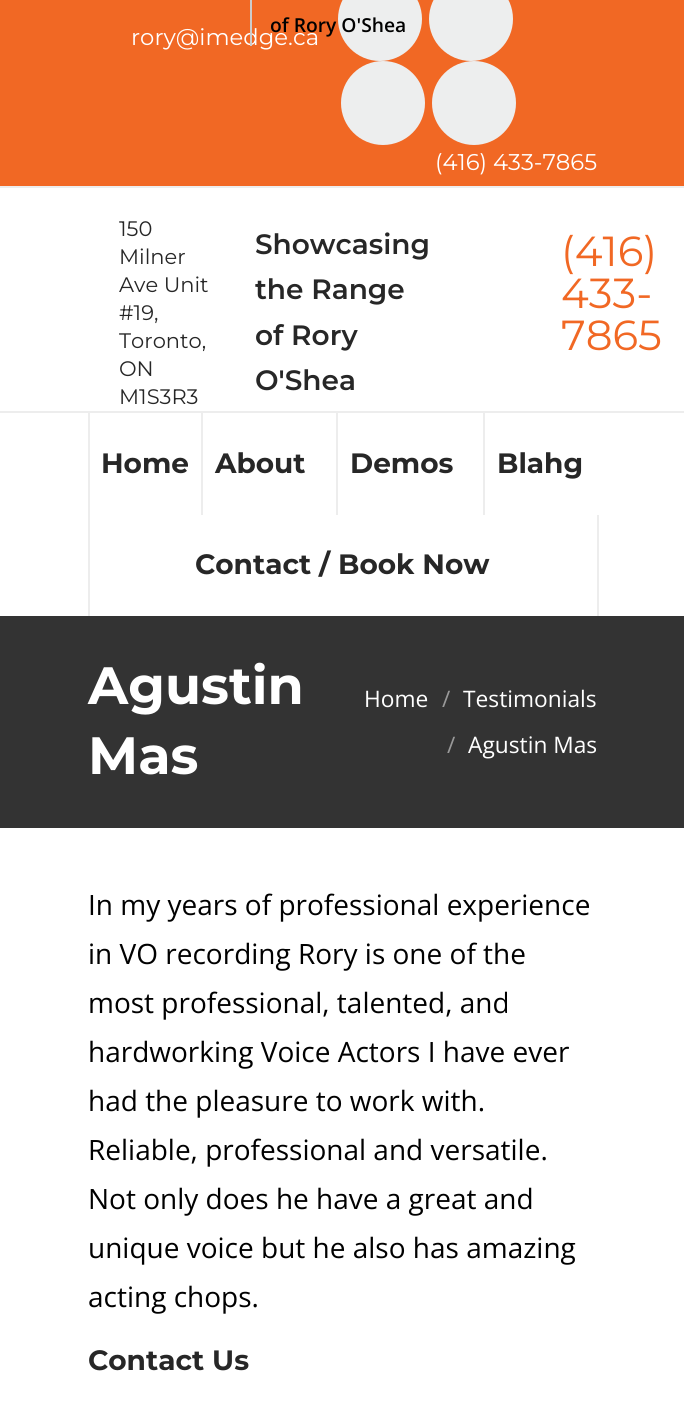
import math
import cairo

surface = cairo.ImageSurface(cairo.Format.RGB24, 684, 1421)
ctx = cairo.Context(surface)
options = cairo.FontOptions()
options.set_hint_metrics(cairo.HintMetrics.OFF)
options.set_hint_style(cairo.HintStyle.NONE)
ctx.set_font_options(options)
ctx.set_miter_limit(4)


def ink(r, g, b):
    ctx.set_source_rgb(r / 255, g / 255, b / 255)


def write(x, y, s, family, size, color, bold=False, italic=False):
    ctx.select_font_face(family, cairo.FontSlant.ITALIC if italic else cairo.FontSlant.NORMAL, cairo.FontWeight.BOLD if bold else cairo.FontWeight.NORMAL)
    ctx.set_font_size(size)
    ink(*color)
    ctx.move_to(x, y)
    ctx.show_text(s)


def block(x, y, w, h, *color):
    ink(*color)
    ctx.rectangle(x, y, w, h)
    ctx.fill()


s1 = dict(family="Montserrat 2 Thin", size=22.75, color=(255, 255, 255))
s2 = dict(family="Open Sans SemiBold", size=19.25, color=(0, 0, 0))
s3 = dict(family="Montserrat 2 Thin", size=21, color=(39, 39, 39))
s4 = dict(family="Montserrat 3 Thin", size=28, color=(39, 39, 39))
s5 = dict(family="Montserrat 2 Thin", size=42, color=(241, 104, 36))
s6 = dict(family="Montserrat Thin", size=28, color=(39, 39, 39))
s7 = dict(family="Montserrat Thin", size=52.5, color=(255, 255, 255))
s8 = dict(family="Open Sans", size=22.75, color=(255, 255, 255))
s9 = dict(family="Open Sans", size=22.75, color=(153, 153, 153))
s10 = dict(family="Open Sans", size=28, color=(0, 0, 0))

ink(255, 255, 255)
ctx.paint()
block(0, 0, 684, 186, 241, 104, 36)
write(131, 45, "rory@imedge.ca", **s1)
block(250, 0, 2, 46, 204, 204, 204)
ink(237, 238, 238)
ctx.new_path()
ctx.arc(380, 19, 42, 0, 2 * math.pi)
ctx.fill()
write(270, 32, "of Rory O'Shea", **s2)
ink(237, 238, 238)
ctx.new_path()
ctx.arc(471, 19, 42, 0, 2 * math.pi)
ctx.fill()
ctx.arc(383, 103, 42, 0, 2 * math.pi)
ctx.fill()
ctx.arc(474, 103, 42, 0, 2 * math.pi)
ctx.fill()
write(435, 170, "(416) 433-7865", **s1)
block(0, 186, 684, 2, 237, 237, 237)
write(119, 236, "150", **s3)
write(119, 264, "Milner", **s3)
write(119, 292, "Ave Unit", **s3)
write(119, 320, "#19,", **s3)
write(119, 348, "Toronto,", **s3)
write(119, 376, "ON", **s3)
write(119, 404, "M1S3R3", **s3)
write(255, 254, "Showcasing", **s4)
write(255, 299, "the Range", **s4)
write(255, 345, "of Rory", **s4)
write(255, 390, "O'Shea", **s4)
write(561, 266, "(416)", **s5)
write(561, 308, "433-", **s5)
write(561, 350, "7865", **s5)
block(0, 411, 684, 2, 237, 237, 237)
block(88, 413, 2, 203, 237, 237, 237)
write(101, 473, "Home", **s6)
block(201, 413, 2, 102, 237, 237, 237)
write(215, 473, "About", **s6)
block(336, 413, 2, 102, 237, 237, 237)
write(350, 473, "Demos", **s6)
block(483, 413, 2, 102, 237, 237, 237)
write(497, 473, "Blahg", **s6)
write(195, 574, "Contact / Book Now", **s6)
block(597, 515, 2, 101, 237, 237, 237)
block(0, 616, 684, 212, 51, 51, 51)
write(88, 704, "Agustin", **s7)
write(88, 774, "Mas", **s7)
write(364, 707, "Home", **s8)
write(442, 707, "/", **s9)
write(463, 707, "Testimonials", **s8)
write(447, 753, "/", **s9)
write(468, 753, "Agustin Mas", **s8)
write(88, 915, "In my years of professional experience", **s10)
write(88, 964, "in VO recording Rory is one of the", **s10)
write(88, 1013, "most professional, talented, and", **s10)
write(88, 1062, "hardworking Voice Actors I have ever", **s10)
write(88, 1111, "had the pleasure to work with.", **s10)
write(88, 1160, "Reliable, professional and versatile.", **s10)
write(88, 1209, "Not only does he have a great and", **s10)
write(88, 1258, "unique voice but he also has amazing", **s10)
write(88, 1307, "acting chops.", **s10)
write(88, 1370, "Contact Us", **s6)
surface.write_to_png("screenshot.png")
